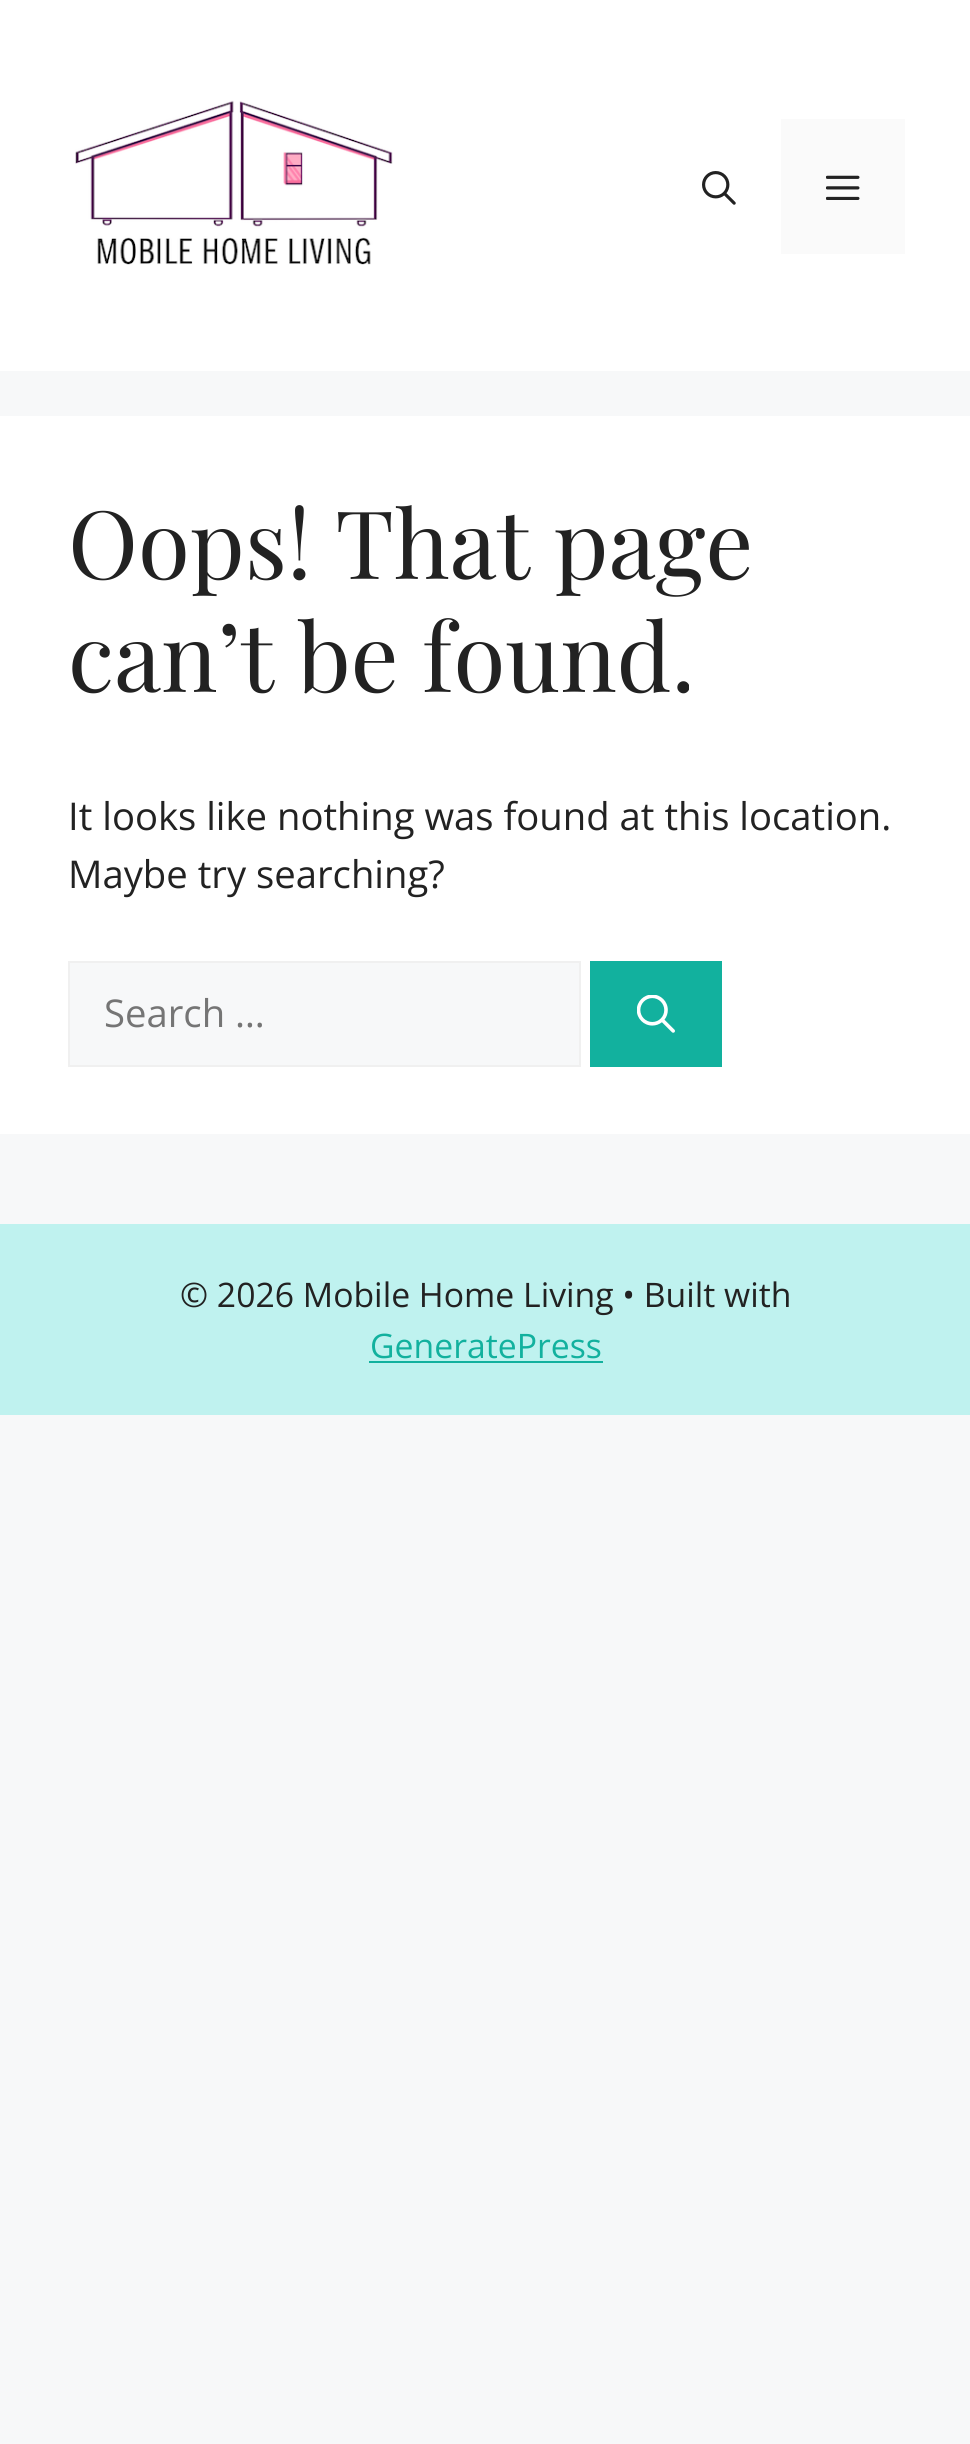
import math
import cairo

surface = cairo.ImageSurface(cairo.Format.RGB24, 970, 2444)
ctx = cairo.Context(surface)
options = cairo.FontOptions()
options.set_hint_metrics(cairo.HintMetrics.OFF)
options.set_hint_style(cairo.HintStyle.NONE)
ctx.set_font_options(options)
ctx.set_miter_limit(4)


def ink(r, g, b):
    ctx.set_source_rgb(r / 255, g / 255, b / 255)


def write(x, y, s, family, size, color, bold=False, italic=False):
    ctx.select_font_face(family, cairo.FontSlant.ITALIC if italic else cairo.FontSlant.NORMAL, cairo.FontWeight.BOLD if bold else cairo.FontWeight.NORMAL)
    ctx.set_font_size(size)
    ink(*color)
    ctx.move_to(x, y)
    ctx.show_text(s)


def block(x, y, w, h, *color):
    ink(*color)
    ctx.rectangle(x, y, w, h)
    ctx.fill()


def paste(path, x, y, w, h):
    ctx.save()
    ctx.set_source_surface(cairo.ImageSurface.create_from_png(path), x, y)
    ctx.rectangle(x, y, w, h)
    ctx.fill()
    ctx.restore()


s1 = dict(family="Playfair Display", size=94.5, color=(34, 34, 34))
s2 = dict(family="Open Sans", size=38.25, color=(34, 34, 34))
s3 = dict(family="Open Sans", size=38.25, color=(117, 117, 117))
s4 = dict(family="Open Sans", size=33.75, color=(34, 34, 34))
s5 = dict(family="Open Sans", size=33.75, color=(18, 177, 158))

ink(247, 248, 249)
ctx.paint()
block(0, 0, 970, 371, 255, 255, 255)
paste("pic1.png", 75, 100, 318, 165)
paste("pic2.png", 702, 171, 34, 34)
block(781, 119, 124, 135, 250, 250, 250)
paste("pic3.png", 826, 175, 34, 25)
block(0, 416, 970, 718, 255, 255, 255)
write(68, 579, "Oops! That page", **s1)
write(68, 692, "can’t be found.", **s1)
write(68, 830, "It looks like nothing was found at this location.", **s2)
write(68, 888, "Maybe try searching?", **s2)
ink(247, 248, 249)
ctx.rectangle(69, 962, 511, 104)
ctx.fill_preserve()
ink(240, 240, 240)
ctx.stroke()
write(104, 1027, "Search …", **s3)
block(590, 961, 132, 106, 18, 177, 158)
paste("pic4.png", 637, 995, 38, 38)
block(0, 1224, 970, 191, 191, 242, 239)
write(180, 1307, "© 2026 Mobile Home Living • Built with", **s4)
write(370, 1358, "GeneratePress", **s5)
block(369, 1361, 234, 2, 18, 177, 158)
surface.write_to_png("screenshot.png")
